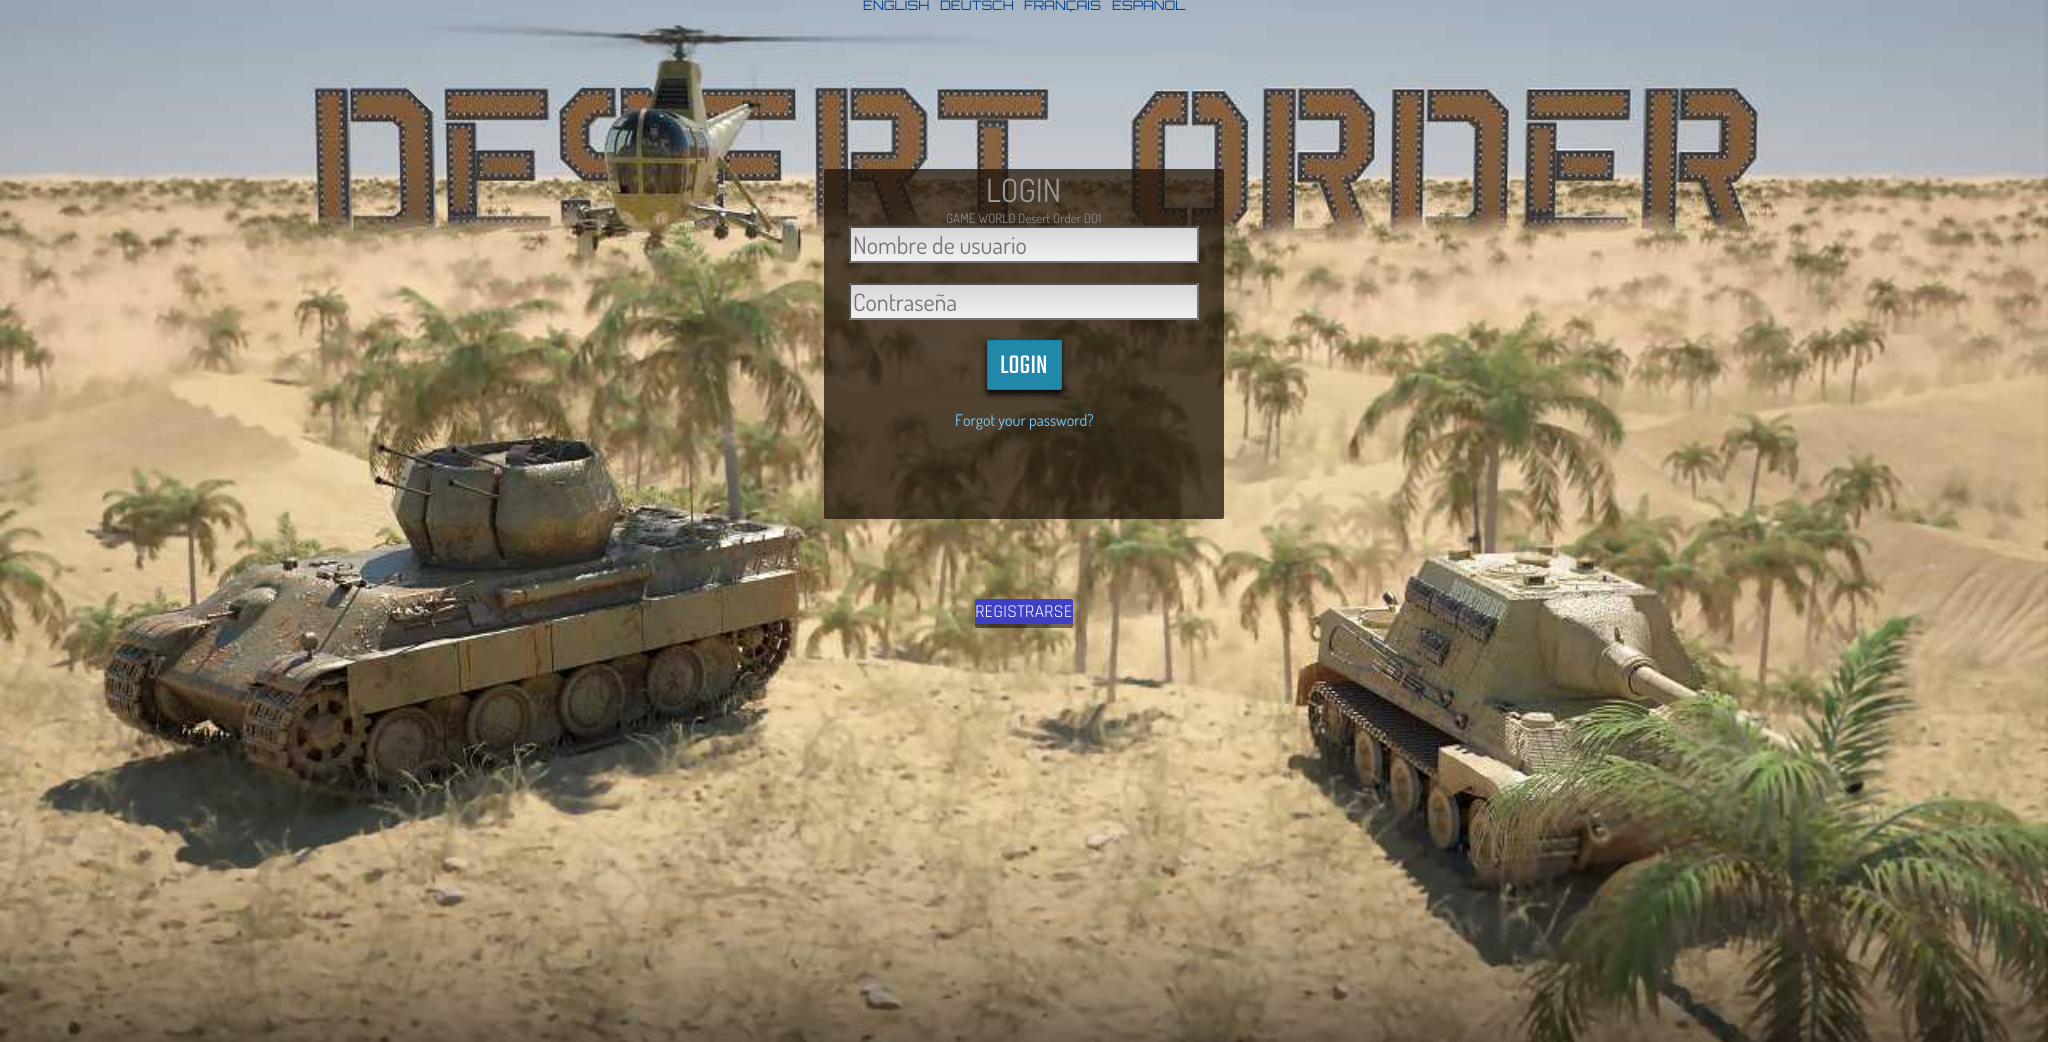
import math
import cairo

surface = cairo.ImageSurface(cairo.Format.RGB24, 2048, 1042)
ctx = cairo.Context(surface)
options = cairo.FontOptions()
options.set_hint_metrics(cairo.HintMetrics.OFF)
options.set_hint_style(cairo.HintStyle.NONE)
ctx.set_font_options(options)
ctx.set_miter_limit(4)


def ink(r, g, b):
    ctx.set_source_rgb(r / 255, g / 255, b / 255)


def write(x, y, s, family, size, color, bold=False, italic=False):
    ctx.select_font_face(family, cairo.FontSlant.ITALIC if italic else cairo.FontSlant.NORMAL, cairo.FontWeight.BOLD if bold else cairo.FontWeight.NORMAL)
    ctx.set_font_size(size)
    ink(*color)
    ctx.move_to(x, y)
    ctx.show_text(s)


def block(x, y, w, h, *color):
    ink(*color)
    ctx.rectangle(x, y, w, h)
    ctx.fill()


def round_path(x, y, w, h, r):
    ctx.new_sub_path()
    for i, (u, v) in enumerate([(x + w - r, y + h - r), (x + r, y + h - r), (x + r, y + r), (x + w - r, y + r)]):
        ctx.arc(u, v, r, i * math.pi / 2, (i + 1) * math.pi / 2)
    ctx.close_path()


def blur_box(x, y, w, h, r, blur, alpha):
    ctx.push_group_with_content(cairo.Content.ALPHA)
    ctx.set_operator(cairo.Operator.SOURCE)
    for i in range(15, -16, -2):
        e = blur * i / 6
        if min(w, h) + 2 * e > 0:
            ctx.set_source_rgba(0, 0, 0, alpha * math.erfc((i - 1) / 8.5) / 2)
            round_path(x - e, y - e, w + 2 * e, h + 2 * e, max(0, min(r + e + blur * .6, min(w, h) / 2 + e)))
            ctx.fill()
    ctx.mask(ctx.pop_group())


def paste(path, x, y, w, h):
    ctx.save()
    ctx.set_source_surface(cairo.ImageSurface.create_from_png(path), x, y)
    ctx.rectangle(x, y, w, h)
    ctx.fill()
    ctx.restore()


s1 = dict(family="Orbitron", size=13, color=(0, 68, 153))
s2 = dict(family="Dosis", size=32, color=(153, 153, 153))
s3 = dict(family="Dosis", size=13, color=(136, 136, 136))
s4 = dict(family="Dosis", size=24, color=(117, 117, 117))
s5 = dict(family="Teko", size=28, color=(255, 255, 255))
s6 = dict(family="Dosis", size=16, color=(119, 204, 255))
s7 = dict(family="Rajdhani", size=18, color=(255, 255, 255))

ink(255, 255, 255)
ctx.paint()
paste("pic1.png", 0, 0, 2048, 1042)
write(863, 10, "ENGLISH", **s1)
write(940, 10, "DEUTSCH", **s1)
write(1024, 10, "FRANÇAIS", **s1)
write(1112, 10, "ESPAÑOL", **s1)
ctx.set_source_rgba(0.118, 0.078, 0.039, 0.75)
round_path(824, 169, 400, 350, 2)
ctx.fill()
write(986, 202, "LOGIN", **s2)
write(946, 223, "GAME WORLD Desert Order DO1", **s3)
block(849, 226, 350, 37, 255, 255, 255)
paste("pic2.png", 849, 228, 350, 35)
ink(79, 79, 79)
ctx.new_path()
ctx.move_to(849, 226)
ctx.line_to(1199, 226)
ctx.line_to(1197, 228)
ctx.line_to(851, 228)
ctx.close_path()
ctx.fill()
ink(118, 118, 118)
ctx.new_path()
ctx.move_to(1199, 226)
ctx.line_to(1199, 263)
ctx.line_to(1197, 261)
ctx.line_to(1197, 228)
ctx.close_path()
ctx.fill()
ctx.new_path()
ctx.move_to(1199, 263)
ctx.line_to(849, 263)
ctx.line_to(851, 261)
ctx.line_to(1197, 261)
ctx.close_path()
ctx.fill()
ink(79, 79, 79)
ctx.new_path()
ctx.move_to(849, 263)
ctx.line_to(849, 226)
ctx.line_to(851, 228)
ctx.line_to(851, 261)
ctx.close_path()
ctx.fill()
write(853, 254, "Nombre de usuario", **s4)
block(849, 283, 350, 37, 255, 255, 255)
paste("pic2.png", 849, 285, 350, 35)
ink(79, 79, 79)
ctx.new_path()
ctx.move_to(849, 283)
ctx.line_to(1199, 283)
ctx.line_to(1197, 285)
ctx.line_to(851, 285)
ctx.close_path()
ctx.fill()
ink(118, 118, 118)
ctx.new_path()
ctx.move_to(1199, 283)
ctx.line_to(1199, 320)
ctx.line_to(1197, 318)
ctx.line_to(1197, 285)
ctx.close_path()
ctx.fill()
ctx.new_path()
ctx.move_to(1199, 320)
ctx.line_to(849, 320)
ctx.line_to(851, 318)
ctx.line_to(1197, 318)
ctx.close_path()
ctx.fill()
ink(79, 79, 79)
ctx.new_path()
ctx.move_to(849, 320)
ctx.line_to(849, 283)
ctx.line_to(851, 285)
ctx.line_to(851, 318)
ctx.close_path()
ctx.fill()
write(853, 311, "Contraseña", **s4)
ink(0, 0, 0)
blur_box(987, 344, 75, 50, 2, 3.5, 1)
ink(34, 136, 170)
round_path(987.5, 340.5, 74, 49, 1.5)
ctx.fill_preserve()
ink(0, 136, 170)
ctx.set_line_width(1)
ctx.stroke()
write(1000, 373, "LOGIN", **s5)
write(955, 426, "Forgot your password?", **s6)
ctx.set_source_rgba(0, 0, 0, 0.5)
ctx.new_path()
ctx.move_to(975, 622)
ctx.line_to(975, 626)
ctx.curve_to(975, 627, 976, 628, 977, 628)
ctx.line_to(1071, 628)
ctx.curve_to(1072, 628, 1073, 627, 1073, 626)
ctx.line_to(1073, 622)
ctx.curve_to(1073, 623, 1072, 624, 1071, 624)
ctx.line_to(977, 624)
ctx.curve_to(976, 624, 975, 623, 975, 622)
ctx.close_path()
ctx.fill()
ink(64, 64, 196)
round_path(975, 599, 98, 25, 2)
ctx.fill()
write(975, 617, "REGISTRARSE", **s7)
surface.write_to_png("screenshot.png")
